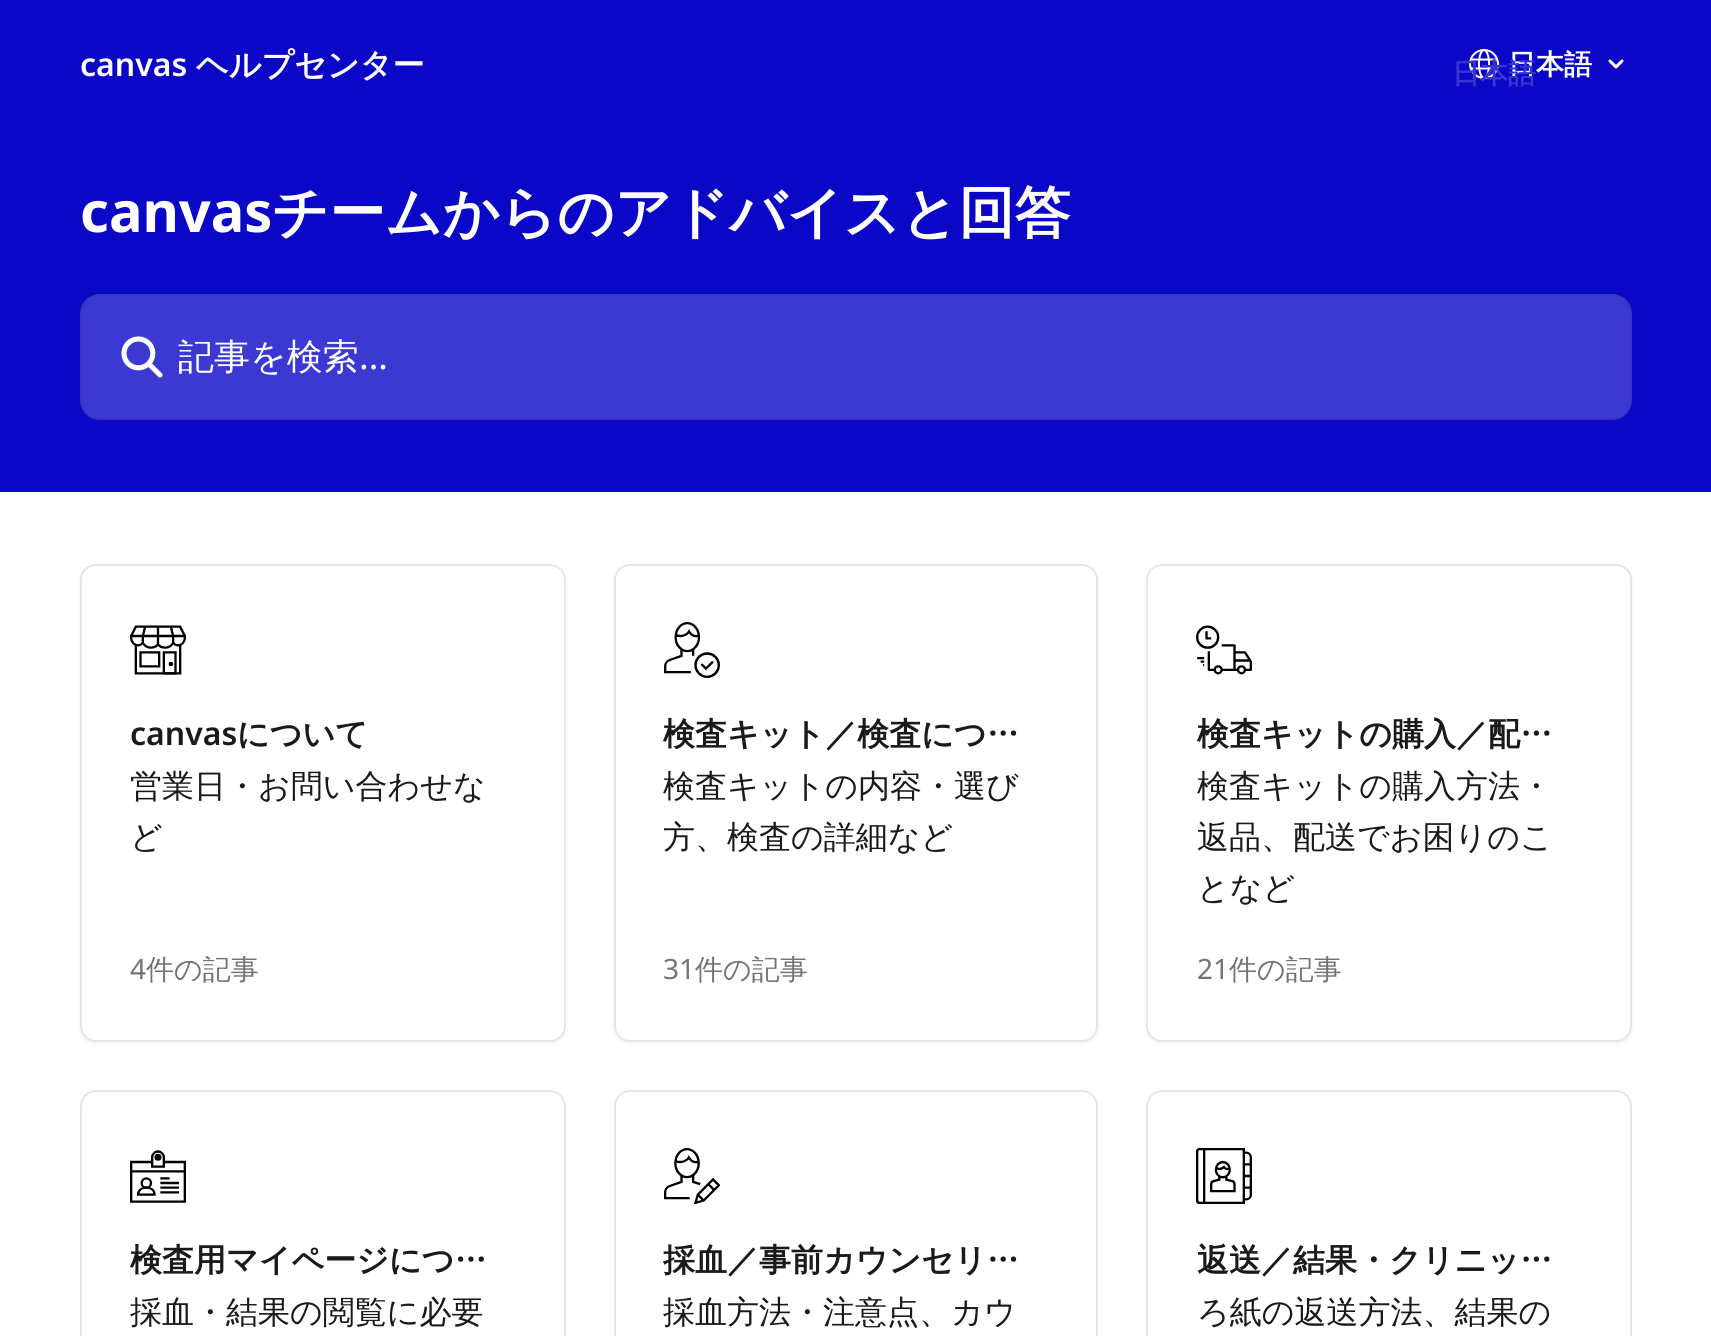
import math
import cairo

surface = cairo.ImageSurface(cairo.Format.RGB24, 1711, 1336)
ctx = cairo.Context(surface)
options = cairo.FontOptions()
options.set_hint_metrics(cairo.HintMetrics.OFF)
options.set_hint_style(cairo.HintStyle.NONE)
ctx.set_font_options(options)
ctx.set_miter_limit(4)


def ink(r, g, b):
    ctx.set_source_rgb(r / 255, g / 255, b / 255)


def write(x, y, s, family, size, color, bold=False, italic=False):
    ctx.select_font_face(family, cairo.FontSlant.ITALIC if italic else cairo.FontSlant.NORMAL, cairo.FontWeight.BOLD if bold else cairo.FontWeight.NORMAL)
    ctx.set_font_size(size)
    ink(*color)
    ctx.move_to(x, y)
    ctx.show_text(s)


def block(x, y, w, h, *color):
    ink(*color)
    ctx.rectangle(x, y, w, h)
    ctx.fill()


def round_path(x, y, w, h, r):
    ctx.new_sub_path()
    for i, (u, v) in enumerate([(x + w - r, y + h - r), (x + r, y + h - r), (x + r, y + r), (x + w - r, y + r)]):
        ctx.arc(u, v, r, i * math.pi / 2, (i + 1) * math.pi / 2)
    ctx.close_path()


def blur_box(x, y, w, h, r, blur, alpha):
    ctx.push_group_with_content(cairo.Content.ALPHA)
    ctx.set_operator(cairo.Operator.SOURCE)
    for i in range(15, -16, -2):
        e = blur * i / 6
        if min(w, h) + 2 * e > 0:
            ctx.set_source_rgba(0, 0, 0, alpha * math.erfc((i - 1) / 8.5) / 2)
            round_path(x - e, y - e, w + 2 * e, h + 2 * e, max(0, min(r + e + blur * .6, min(w, h) / 2 + e)))
            ctx.fill()
    ctx.mask(ctx.pop_group())


def paste(path, x, y, w, h):
    ctx.save()
    ctx.set_source_surface(cairo.ImageSurface.create_from_png(path), x, y)
    ctx.rectangle(x, y, w, h)
    ctx.fill()
    ctx.restore()


s1 = dict(family="Noto Sans SemiBold", size=32, color=(255, 255, 255))
s2 = dict(family="WenQuanYi Zen Hei", size=32, color=(255, 255, 255), bold=True)
s3 = dict(family="WenQuanYi Zen Hei", size=28, color=(255, 255, 255), bold=True)
s4 = dict(family="WenQuanYi Zen Hei", size=28, color=(56, 53, 209), bold=True)
s5 = dict(family="Noto Sans", size=56, color=(255, 255, 255), bold=True)
s6 = dict(family="WenQuanYi Zen Hei", size=56, color=(255, 255, 255), bold=True)
s7 = dict(family="WenQuanYi Zen Hei Medium", size=36, color=(255, 255, 255))
s8 = dict(family="Noto Sans", size=36, color=(255, 255, 255))
s9 = dict(family="Noto Sans SemiBold", size=32, color=(26, 26, 26))
s10 = dict(family="WenQuanYi Zen Hei", size=32, color=(26, 26, 26), bold=True)
s11 = dict(family="WenQuanYi Zen Hei Medium", size=32, color=(26, 26, 26))
s12 = dict(family="Noto Sans", size=28, color=(115, 115, 115))
s13 = dict(family="WenQuanYi Zen Hei Medium", size=28, color=(115, 115, 115))

ink(255, 255, 255)
ctx.paint()
block(0, 0, 1711, 492, 11, 7, 199)
write(80, 76, "canvas", **s1)
write(196, 76, "ヘルプセンター", **s2)
paste("pic1.png", 1469, 49, 30, 30)
write(1508, 74, "日本語", **s3)
write(1452, 83, "日本語", **s4)
ctx.new_path()
ctx.move_to(1610, 61)
ctx.line_to(1616, 67)
ctx.line_to(1622, 61)
ink(255, 255, 255)
ctx.set_line_width(3)
ctx.set_line_cap(cairo.LineCap.ROUND)
ctx.set_line_join(cairo.LineJoin.ROUND)
ctx.stroke()
write(80, 232, "canvas", **s5)
write(272, 232, "チームからのアドバイスと回答", **s6)
ctx.set_source_rgba(1, 1, 1, 0.2)
round_path(80, 294, 1552, 126, 20)
ctx.fill()
round_path(81, 295, 1550, 124, 19)
ctx.set_source_rgba(0, 0, 0, 0.08)
ctx.set_line_width(2)
ctx.set_line_cap(cairo.LineCap.BUTT)
ctx.set_line_join(cairo.LineJoin.MITER)
ctx.stroke()
paste("pic2.png", 121, 336, 42, 42)
write(178, 369, "記事を検索", **s7)
write(359, 369, "...", **s8)
ink(0, 0, 0)
blur_box(80, 566, 486, 478, 16, 2, 0.05)
ink(255, 255, 255)
round_path(81, 565, 484, 476, 15)
ctx.fill_preserve()
ink(230, 230, 230)
ctx.stroke()
paste("pic3.png", 130, 625, 56, 50)
write(130, 745, "canvas", **s9)
write(237, 745, "について", **s10)
write(130, 797, "営業日・お問い合わせな", **s11)
write(130, 848, "ど", **s11)
write(130, 979, "4", **s12)
write(146, 979, "件の記事", **s13)
ink(0, 0, 0)
blur_box(614, 566, 484, 478, 16, 2, 0.05)
ink(255, 255, 255)
round_path(615, 565, 482, 476, 15)
ctx.fill_preserve()
ink(230, 230, 230)
ctx.stroke()
paste("pic4.png", 664, 622, 56, 56)
write(663, 745, "検査キット／検査につ…", **s10)
write(663, 797, "検査キットの内容・選び", **s11)
write(663, 848, "方、検査の詳細など", **s11)
write(663, 979, "31", **s12)
write(695, 979, "件の記事", **s13)
ink(0, 0, 0)
blur_box(1146, 566, 486, 478, 16, 2, 0.05)
ink(255, 255, 255)
round_path(1147, 565, 484, 476, 15)
ctx.fill_preserve()
ink(230, 230, 230)
ctx.stroke()
paste("pic5.png", 1196, 625, 56, 50)
write(1197, 745, "検査キットの購入／配…", **s10)
write(1197, 797, "検査キットの購入方法・", **s11)
write(1197, 848, "返品、配送でお困りのこ", **s11)
write(1197, 899, "となど", **s11)
write(1197, 979, "21", **s12)
write(1229, 979, "件の記事", **s13)
round_path(81, 1091, 484, 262, 15)
ink(230, 230, 230)
ctx.stroke()
paste("pic6.png", 130, 1150, 56, 53)
write(130, 1271, "検査用マイページにつ…", **s10)
write(130, 1323, "採血・結果の閲覧に必要", **s11)
round_path(615, 1091, 482, 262, 15)
ink(230, 230, 230)
ctx.stroke()
paste("pic7.png", 664, 1148, 56, 56)
write(663, 1271, "採血／事前カウンセリ…", **s10)
write(663, 1323, "採血方法・注意点、カウ", **s11)
round_path(1147, 1091, 484, 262, 15)
ink(230, 230, 230)
ctx.stroke()
paste("pic8.png", 1196, 1148, 56, 56)
write(1197, 1271, "返送／結果・クリニッ…", **s10)
write(1197, 1323, "ろ紙の返送方法、結果の", **s11)
surface.write_to_png("screenshot.png")
